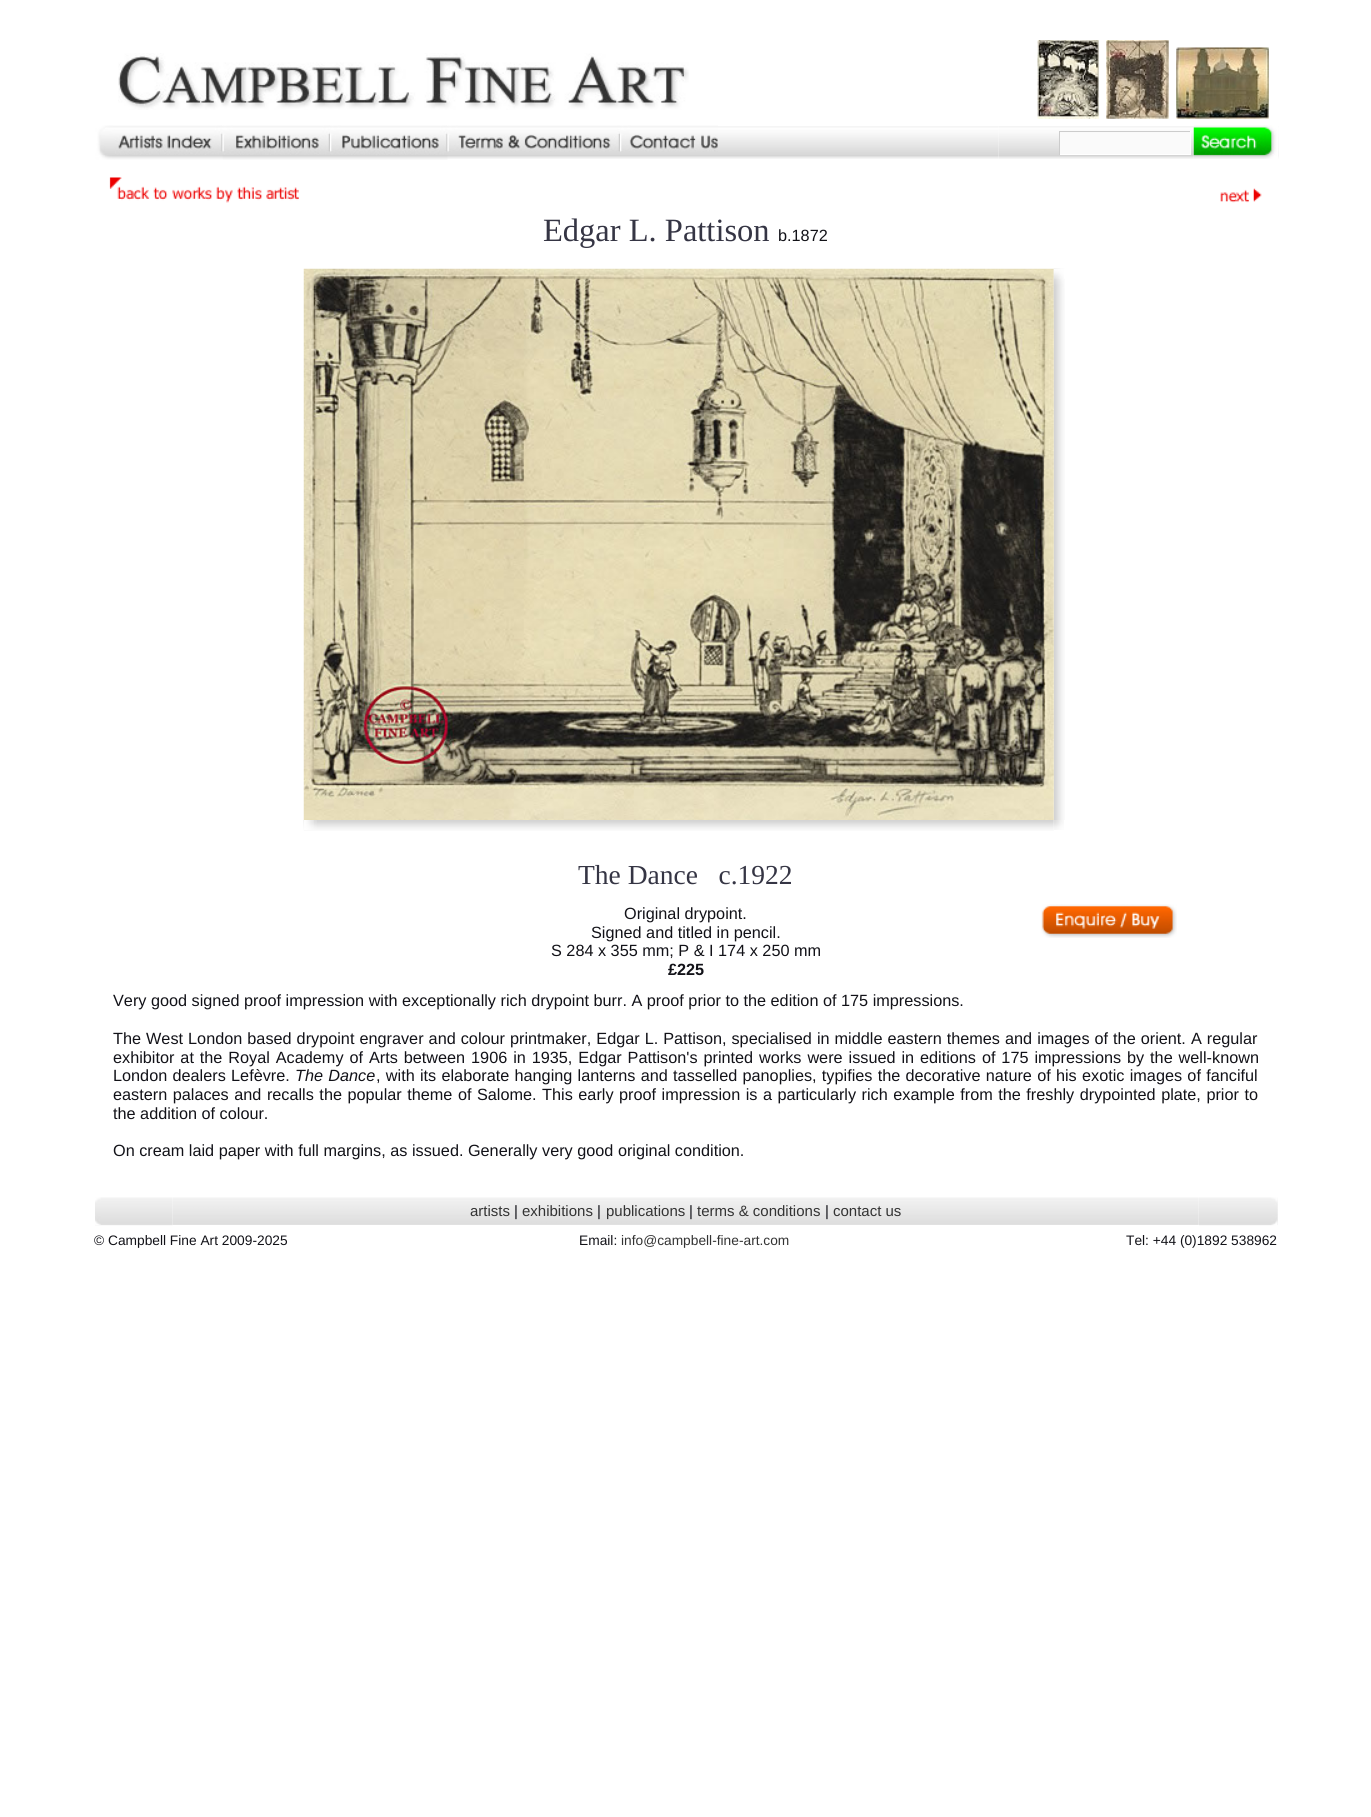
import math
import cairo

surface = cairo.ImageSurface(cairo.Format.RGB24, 1371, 1817)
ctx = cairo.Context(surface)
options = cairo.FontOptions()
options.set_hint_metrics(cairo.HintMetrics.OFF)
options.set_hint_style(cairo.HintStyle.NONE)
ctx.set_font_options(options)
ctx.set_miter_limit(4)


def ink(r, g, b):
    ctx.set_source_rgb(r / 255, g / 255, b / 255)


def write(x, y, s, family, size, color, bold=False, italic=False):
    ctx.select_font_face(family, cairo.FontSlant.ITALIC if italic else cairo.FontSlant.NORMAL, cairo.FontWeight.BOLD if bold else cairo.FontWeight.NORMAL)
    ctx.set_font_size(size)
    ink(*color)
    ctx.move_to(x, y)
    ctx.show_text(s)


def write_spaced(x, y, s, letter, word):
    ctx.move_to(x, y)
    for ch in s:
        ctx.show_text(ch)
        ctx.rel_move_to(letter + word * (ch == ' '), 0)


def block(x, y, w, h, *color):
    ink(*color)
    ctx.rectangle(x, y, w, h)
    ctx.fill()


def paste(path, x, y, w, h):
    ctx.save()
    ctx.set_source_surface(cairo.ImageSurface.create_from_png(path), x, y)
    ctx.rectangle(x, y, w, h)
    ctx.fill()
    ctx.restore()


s1 = dict(family="Liberation Serif", size=32.5, color=(53, 53, 68))
s2 = dict(family="Liberation Sans", size=16.25, color=(18, 18, 24))
s3 = dict(family="Liberation Serif", size=27.5, color=(53, 53, 68))
s4 = dict(family="Liberation Sans", size=16.25, color=(18, 18, 24), bold=True)
s5 = dict(family="Liberation Sans", size=15, color=(51, 51, 51))
s6 = dict(family="Liberation Sans", size=15, color=(18, 18, 24))
s7 = dict(family="Liberation Sans", size=13.75, color=(18, 18, 24))
s8 = dict(family="Liberation Sans", size=13.75, color=(51, 51, 51))

ink(255, 255, 255)
ctx.paint()
paste("pic1.png", 118, 53, 571, 57)
paste("pic2.png", 1037, 40, 62, 79)
paste("pic3.png", 1106, 40, 63, 79)
paste("pic4.png", 1176, 47, 93, 72)
paste("pic5.png", 222, 126, 777, 33)
paste("pic6.png", 95, 125, 128, 35)
paste("pic7.png", 222, 125, 108, 35)
paste("pic8.png", 330, 125, 118, 35)
paste("pic9.png", 447, 125, 173, 27)
paste("pic10.png", 620, 125, 98, 27)
paste("pic11.png", 999, 126, 195, 33)
block(1060, 133, 130, 21, 250, 250, 250)
block(1059, 131, 132, 1, 204, 204, 204)
block(1190, 131, 1, 24, 255, 255, 255)
block(1059, 154, 132, 1, 255, 255, 255)
block(1059, 131, 1, 24, 204, 204, 204)
paste("pic12.png", 1278, 126, 1, 33)
paste("pic13.png", 1193, 125, 86, 34)
paste("pic14.png", 109, 177, 190, 26)
paste("pic15.png", 1220, 188, 42, 15)
write(543, 241, "Edgar L. Pattison", **s1)
write(778, 241, "b.1872", **s2)
paste("pic17.png", 1053, 268, 12, 552)
paste("pic16.png", 303, 268, 751, 552)
paste("pic18.png", 1053, 269, 12, 41)
paste("pic19.png", 303, 820, 751, 11)
paste("pic20.png", 304, 820, 13, 10)
paste("pic21.png", 1054, 820, 10, 10)
write(578, 884, "The Dance   c.1922", **s3)
write(624, 919, "Original drypoint.", **s2)
write(591, 938, "Signed and titled in pencil.", **s2)
write(551, 956, "S 284 x 355 mm; P & I 174 x 250 mm", **s2)
write(668, 975, "£225", **s4)
paste("pic22.png", 1041, 904, 136, 34)
write(113, 1006, "Very good signed proof impression with exceptionally rich drypoint burr. A proof prior to the edition of 175 impressions.", **s2)
write_spaced(113, 1044, "The West London based drypoint engraver and colour printmaker, Edgar L. Pattison, specialised in middle eastern themes and images of the orient. A regular", 0, 0.5)
write_spaced(113, 1063, "exhibitor at the Royal Academy of Arts between 1906 in 1935, Edgar Pattison's printed works were issued in editions of 175 impressions by the well-known", 0, 1.4)
write_spaced(113, 1081, "London dealers Lefèvre.", 0, 0.75)
ctx.select_font_face("Liberation Sans", cairo.FontSlant.ITALIC)
write_spaced(295, 1081, "The Dance", 0, 0.75)
ctx.select_font_face("Liberation Sans")
write_spaced(376, 1081, ", with its elaborate hanging lanterns and tasselled panoplies, typifies the decorative nature of his exotic images of fanciful", 0, 0.75)
write_spaced(113, 1100, "eastern palaces and recalls the popular theme of Salome. This early proof impression is a particularly rich example from the freshly drypointed plate, prior to", 0, 1)
write(113, 1119, "the addition of colour.", **s2)
write(113, 1156, "On cream laid paper with full margins, as issued. Generally very good original condition.", **s2)
paste("pic23.png", 95, 1197, 78, 29)
paste("pic24.png", 95, 1197, 6, 28)
paste("pic25.png", 172, 1197, 1027, 28)
write(470, 1216, "artists", **s5)
write(514, 1216, "|", **s6)
write(522, 1216, "exhibitions", **s5)
write(597, 1216, "|", **s6)
write(606, 1216, "publications", **s5)
write(689, 1216, "|", **s6)
write(697, 1216, "terms & conditions", **s5)
write(825, 1216, "|", **s6)
write(833, 1216, "contact us", **s5)
paste("pic26.png", 1199, 1197, 79, 29)
paste("pic27.png", 1271, 1197, 7, 29)
write(94, 1245, "© Campbell Fine Art 2009-2025", **s7)
write(579, 1245, "Email:", **s7)
write(621, 1245, "info@campbell-fine-art.com", **s8)
write(1126, 1245, "Tel: +44 (0)1892 538962", **s7)
surface.write_to_png("screenshot.png")
